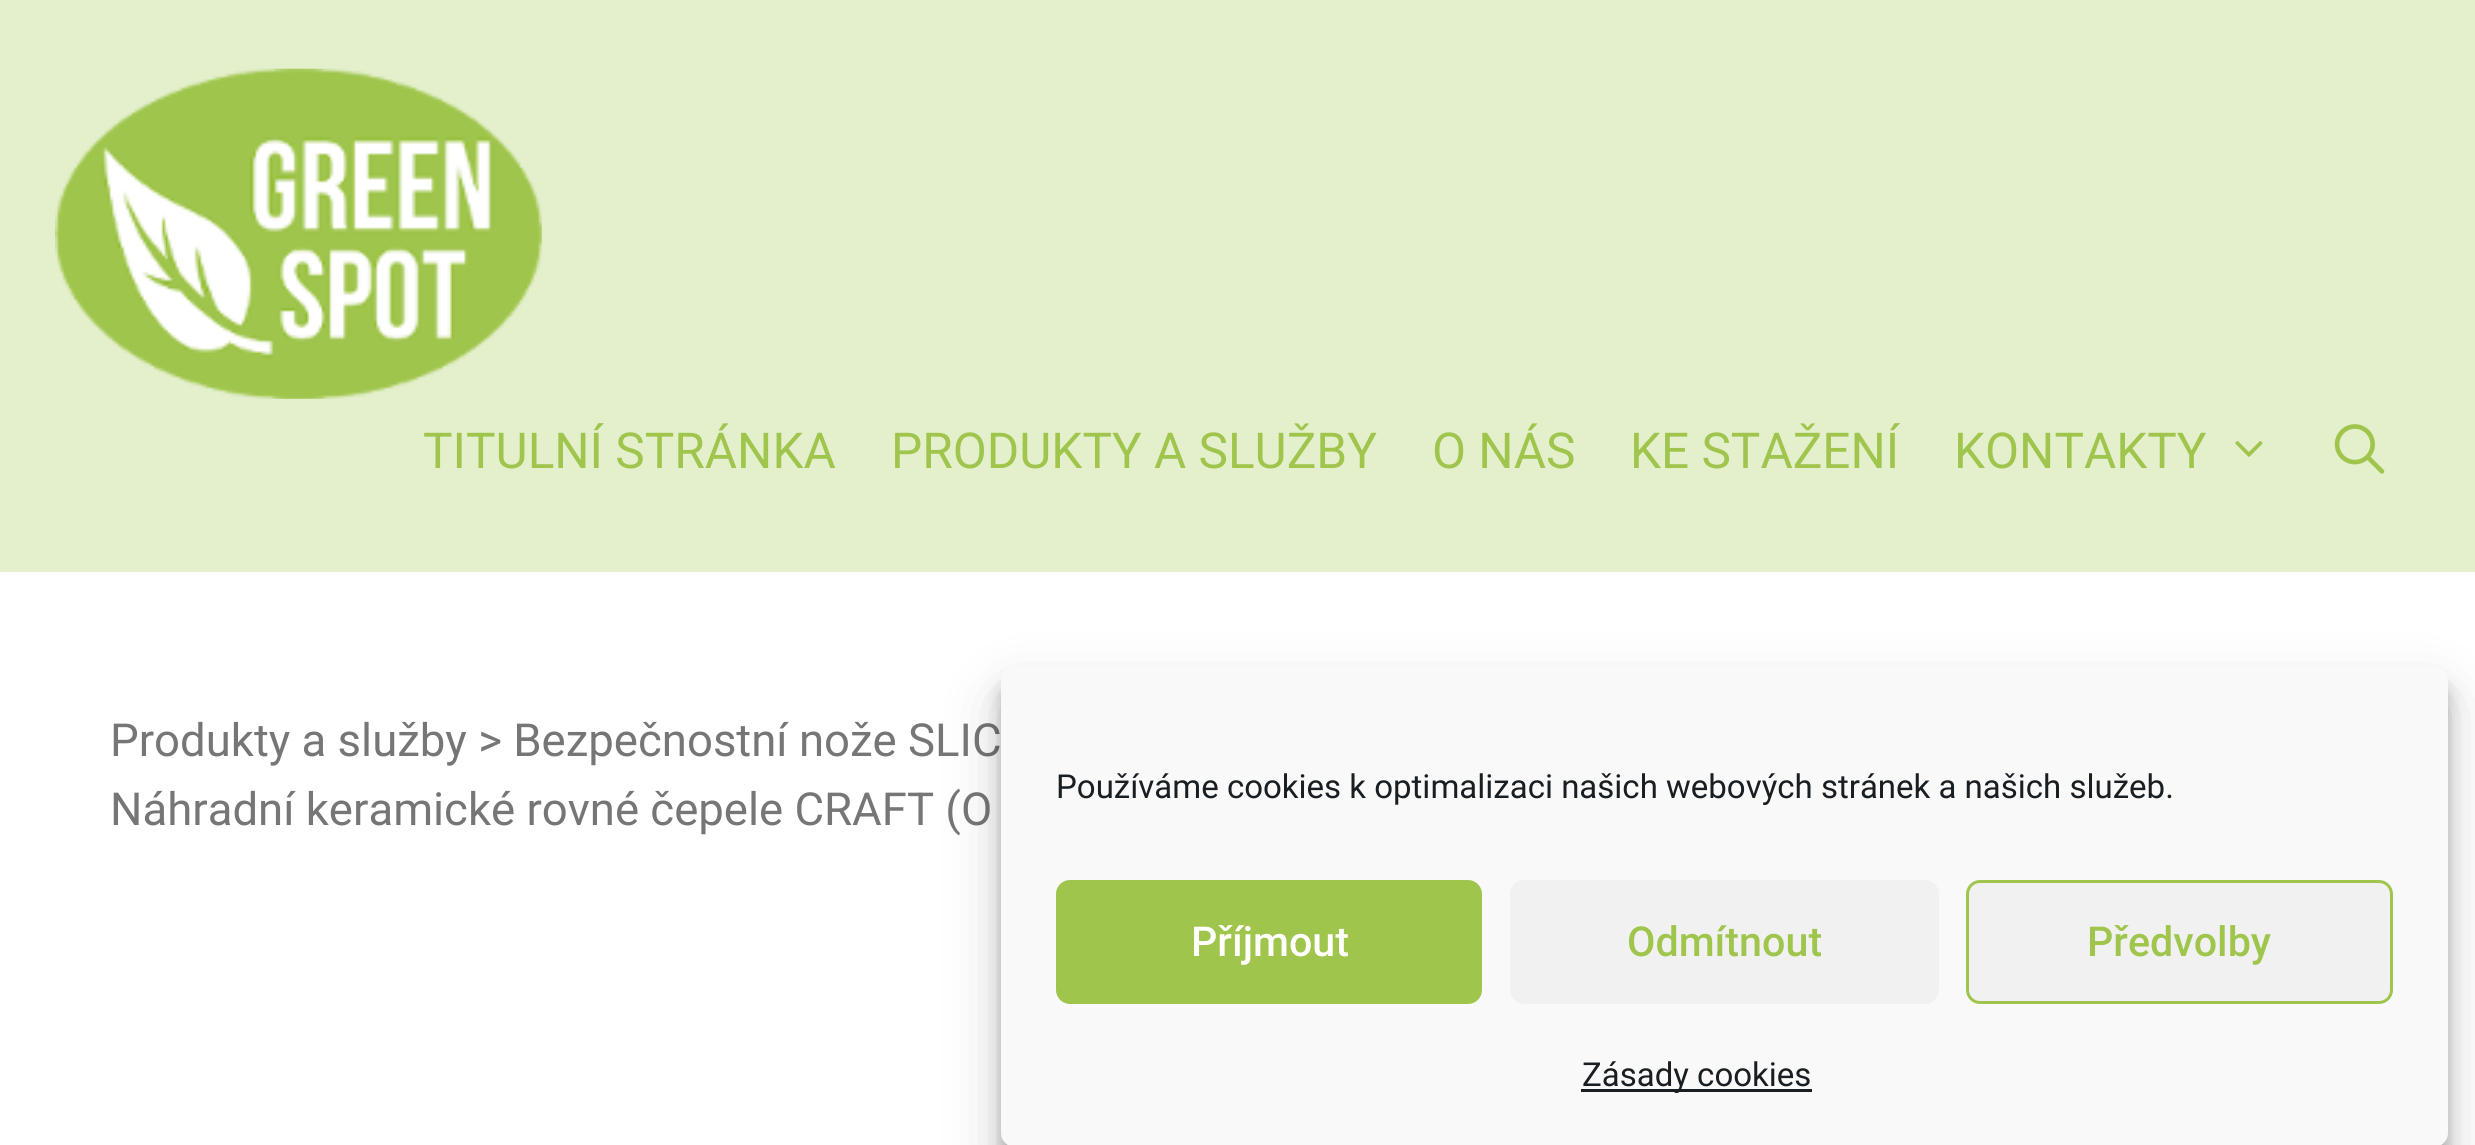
import math
import cairo

surface = cairo.ImageSurface(cairo.Format.RGB24, 2475, 1145)
ctx = cairo.Context(surface)
options = cairo.FontOptions()
options.set_hint_metrics(cairo.HintMetrics.OFF)
options.set_hint_style(cairo.HintStyle.NONE)
ctx.set_font_options(options)
ctx.set_miter_limit(4)


def ink(r, g, b):
    ctx.set_source_rgb(r / 255, g / 255, b / 255)


def write(x, y, s, family, size, color, bold=False, italic=False):
    ctx.select_font_face(family, cairo.FontSlant.ITALIC if italic else cairo.FontSlant.NORMAL, cairo.FontWeight.BOLD if bold else cairo.FontWeight.NORMAL)
    ctx.set_font_size(size)
    ink(*color)
    ctx.move_to(x, y)
    ctx.show_text(s)


def block(x, y, w, h, *color):
    ink(*color)
    ctx.rectangle(x, y, w, h)
    ctx.fill()


def round_path(x, y, w, h, r):
    ctx.new_sub_path()
    for i, (u, v) in enumerate([(x + w - r, y + h - r), (x + r, y + h - r), (x + r, y + r), (x + w - r, y + r)]):
        ctx.arc(u, v, r, i * math.pi / 2, (i + 1) * math.pi / 2)
    ctx.close_path()


def blur_box(x, y, w, h, r, blur, alpha):
    ctx.push_group_with_content(cairo.Content.ALPHA)
    ctx.set_operator(cairo.Operator.SOURCE)
    for i in range(15, -16, -2):
        e = blur * i / 6
        if min(w, h) + 2 * e > 0:
            ctx.set_source_rgba(0, 0, 0, alpha * math.erfc((i - 1) / 8.5) / 2)
            round_path(x - e, y - e, w + 2 * e, h + 2 * e, max(0, min(r + e + blur * .6, min(w, h) / 2 + e)))
            ctx.fill()
    ctx.mask(ctx.pop_group())


def paste(path, x, y, w, h):
    ctx.save()
    ctx.set_source_surface(cairo.ImageSurface.create_from_png(path), x, y)
    ctx.rectangle(x, y, w, h)
    ctx.fill()
    ctx.restore()


s1 = dict(family="Roboto", size=49.5, color=(159, 197, 77))
s2 = dict(family="Roboto", size=45.5, color=(118, 118, 118))
s3 = dict(family="Roboto", size=33, color=(25, 30, 35))
s4 = dict(family="Roboto Medium", size=41.25, color=(255, 255, 255))
s5 = dict(family="Roboto Medium", size=41.25, color=(159, 197, 77))

ink(255, 255, 255)
ctx.paint()
block(0, 0, 2475, 572, 228, 239, 204)
paste("pic1.png", 55, 68, 487, 331)
write(423, 468, "TITULNÍ STRÁNKA", **s1)
write(891, 468, "PRODUKTY A SLUŽBY", **s1)
write(1432, 468, "O NÁS", **s1)
write(1630, 468, "KE STAŽENÍ", **s1)
write(1954, 468, "KONTAKTY", **s1)
paste("pic2.png", 2235, 441, 28, 16)
paste("pic3.png", 2334, 424, 51, 50)
write(110, 756, "Produkty a služby > Bezpečnostní nože SLIC", **s2)
write(110, 825, "Náhradní keramické rovné čepele CRAFT (O", **s2)
ink(0, 0, 0)
blur_box(1001, 682, 1447, 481, 14, 8, 0.23)
blur_box(1001, 693, 1447, 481, 14, 27.5, 0.19)
ink(249, 249, 249)
round_path(1001, 666, 1447, 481, 14)
ctx.fill()
write(1056, 798, "Používáme cookies k optimalizaci našich webových stránek a našich služeb.", **s3)
ink(159, 197, 77)
round_path(1057.5, 881.5, 423, 121, 12.5)
ctx.fill_preserve()
ctx.set_line_width(3)
ctx.stroke()
write(1191, 956, "Příjmout", **s4)
ink(241, 241, 241)
round_path(1510, 880, 429, 124, 14)
ctx.fill()
write(1627, 956, "Odmítnout", **s5)
ink(241, 241, 241)
round_path(1967.5, 881.5, 424, 121, 12.5)
ctx.fill_preserve()
ink(159, 197, 77)
ctx.stroke()
write(2087, 956, "Předvolby", **s5)
block(1581, 1089, 231, 3, 25, 30, 35)
write(1582, 1086, "Zásady cookies", **s3)
surface.write_to_png("screenshot.png")
